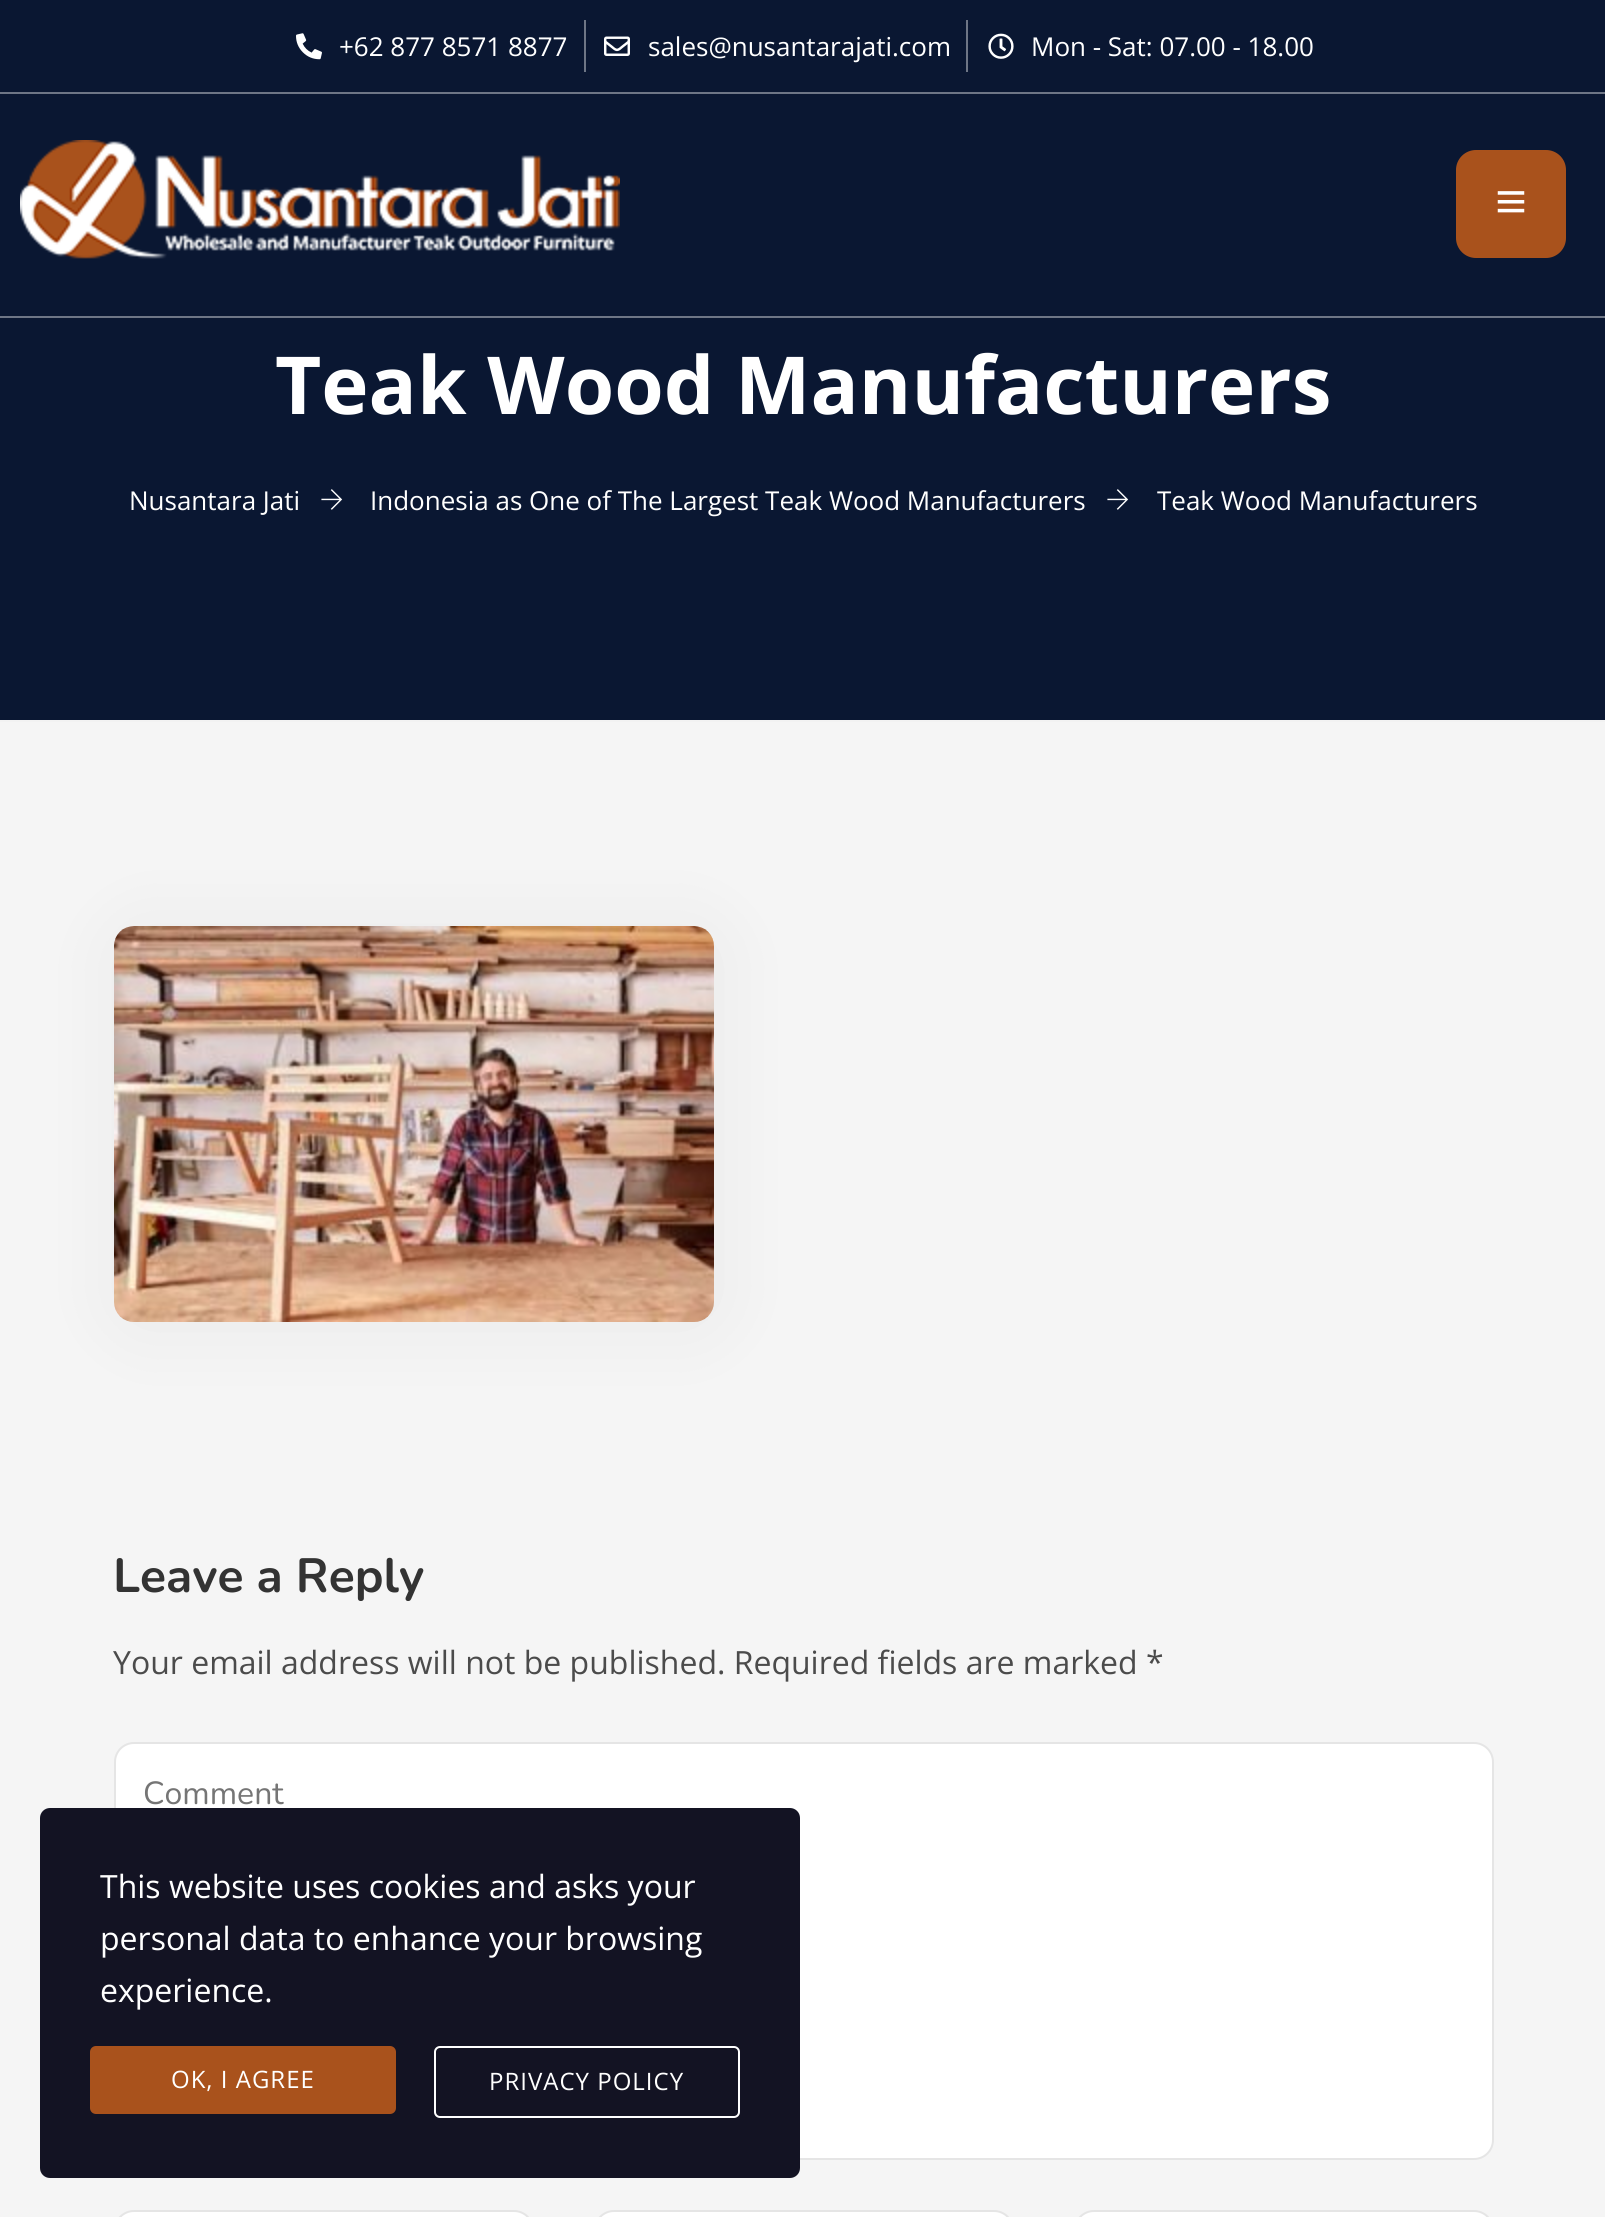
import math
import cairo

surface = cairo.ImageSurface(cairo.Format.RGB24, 1605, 2217)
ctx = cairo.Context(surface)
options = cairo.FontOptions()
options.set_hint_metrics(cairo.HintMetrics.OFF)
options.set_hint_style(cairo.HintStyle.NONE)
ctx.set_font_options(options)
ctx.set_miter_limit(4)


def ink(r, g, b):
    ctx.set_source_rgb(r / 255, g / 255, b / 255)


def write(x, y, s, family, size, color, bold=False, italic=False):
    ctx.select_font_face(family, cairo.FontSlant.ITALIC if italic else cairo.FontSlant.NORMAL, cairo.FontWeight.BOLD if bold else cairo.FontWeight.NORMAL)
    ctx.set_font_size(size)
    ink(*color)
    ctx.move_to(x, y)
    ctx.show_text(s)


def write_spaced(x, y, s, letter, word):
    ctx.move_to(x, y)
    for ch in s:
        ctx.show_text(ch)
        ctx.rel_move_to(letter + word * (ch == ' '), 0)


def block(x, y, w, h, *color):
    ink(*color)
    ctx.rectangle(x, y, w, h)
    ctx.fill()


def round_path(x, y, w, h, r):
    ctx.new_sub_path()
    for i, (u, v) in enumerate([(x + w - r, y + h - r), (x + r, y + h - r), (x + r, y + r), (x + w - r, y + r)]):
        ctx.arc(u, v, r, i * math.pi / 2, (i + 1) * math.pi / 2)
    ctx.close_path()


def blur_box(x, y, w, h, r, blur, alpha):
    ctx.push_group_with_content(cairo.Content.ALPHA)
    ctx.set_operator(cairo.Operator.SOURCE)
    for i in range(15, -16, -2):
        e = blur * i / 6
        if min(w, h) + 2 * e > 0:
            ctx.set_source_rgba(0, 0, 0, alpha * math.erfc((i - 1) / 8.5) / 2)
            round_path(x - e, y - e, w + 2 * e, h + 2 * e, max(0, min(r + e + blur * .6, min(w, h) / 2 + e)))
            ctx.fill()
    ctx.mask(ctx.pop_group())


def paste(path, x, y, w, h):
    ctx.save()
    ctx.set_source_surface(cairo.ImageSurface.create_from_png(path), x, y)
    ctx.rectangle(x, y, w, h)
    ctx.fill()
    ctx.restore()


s1 = dict(family="Open Sans", size=26, color=(255, 255, 255))
s2 = dict(family="Open Sans", size=80, color=(255, 255, 255), bold=True)
s3 = dict(family="Nunito", size=48, color=(51, 51, 51), bold=True)
s4 = dict(family="Open Sans", size=32, color=(75, 75, 75))
s5 = dict(family="Nunito", size=32, color=(117, 117, 117))
s6 = dict(family="Open Sans", size=32, color=(255, 255, 255))

ink(245, 245, 245)
ctx.paint()
block(0, 0, 1605, 720, 10, 23, 50)
paste("pic1.png", 296, 33, 26, 27)
write(339, 56, "+62 877 8571 8877", **s1)
block(584, 20, 2, 52, 110, 118, 134)
paste("pic2.png", 604, 36, 26, 20)
write(648, 56, "sales@nusantarajati.com", **s1)
block(966, 20, 2, 52, 110, 118, 134)
paste("pic3.png", 988, 33, 26, 26)
write(1031, 56, "Mon - Sat: 07.00 - 18.00", **s1)
block(0, 92, 1605, 2, 110, 118, 134)
block(0, 316, 1605, 2, 110, 118, 134)
paste("pic4.png", 20, 140, 600, 119)
ink(169, 82, 28)
round_path(1456, 150, 110, 108, 20)
ctx.fill()
paste("pic5.png", 1497, 191, 28, 22)
block(0, 720, 1605, 2, 242, 242, 242)
write(275, 414, "Teak Wood Manufacturers", **s2)
write(129, 510, "Nusantara Jati", **s1)
paste("pic6.png", 321, 489, 22, 21)
write(370, 510, "Indonesia as One of The Largest Teak Wood Manufacturers", **s1)
paste("pic6.png", 1107, 489, 22, 21)
write(1157, 510, "Teak Wood Manufacturers", **s1)
ink(0, 0, 0)
blur_box(118, 930, 600, 396, 20, 40, 0.05)
paste("pic7.png", 114, 926, 600, 396)
write(113, 1592, "Leave a Reply", **s3)
write(113, 1674, "Your email address will not be published. Required fields are marked *", **s4)
ink(255, 255, 255)
round_path(115, 1743, 1378, 416, 19)
ctx.fill_preserve()
ink(229, 229, 229)
ctx.stroke()
write(143, 1804, "Comment", **s5)
ink(255, 255, 255)
round_path(115, 2211, 418, 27, 19)
ctx.fill_preserve()
ink(229, 229, 229)
ctx.stroke()
ink(255, 255, 255)
round_path(595, 2211, 418, 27, 19)
ctx.fill_preserve()
ink(229, 229, 229)
ctx.stroke()
ink(255, 255, 255)
round_path(1075, 2211, 418, 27, 19)
ctx.fill_preserve()
ink(229, 229, 229)
ctx.stroke()
ink(19, 19, 35)
round_path(40, 1808, 760, 370, 10)
ctx.fill()
write(100, 1898, "This website uses cookies and asks your", **s6)
write(100, 1950, "personal data to enhance your browsing", **s6)
write(100, 2002, "experience.", **s6)
ink(169, 82, 28)
round_path(90, 2046, 306, 68, 6)
ctx.fill()
ctx.set_font_size(24)
ink(255, 255, 255)
write_spaced(171, 2088, "OK, I AGREE", 1, 0)
round_path(435, 2047, 304, 70, 5)
ctx.stroke()
write_spaced(489, 2090, "PRIVACY POLICY", 1, 0)
surface.write_to_png("screenshot.png")
